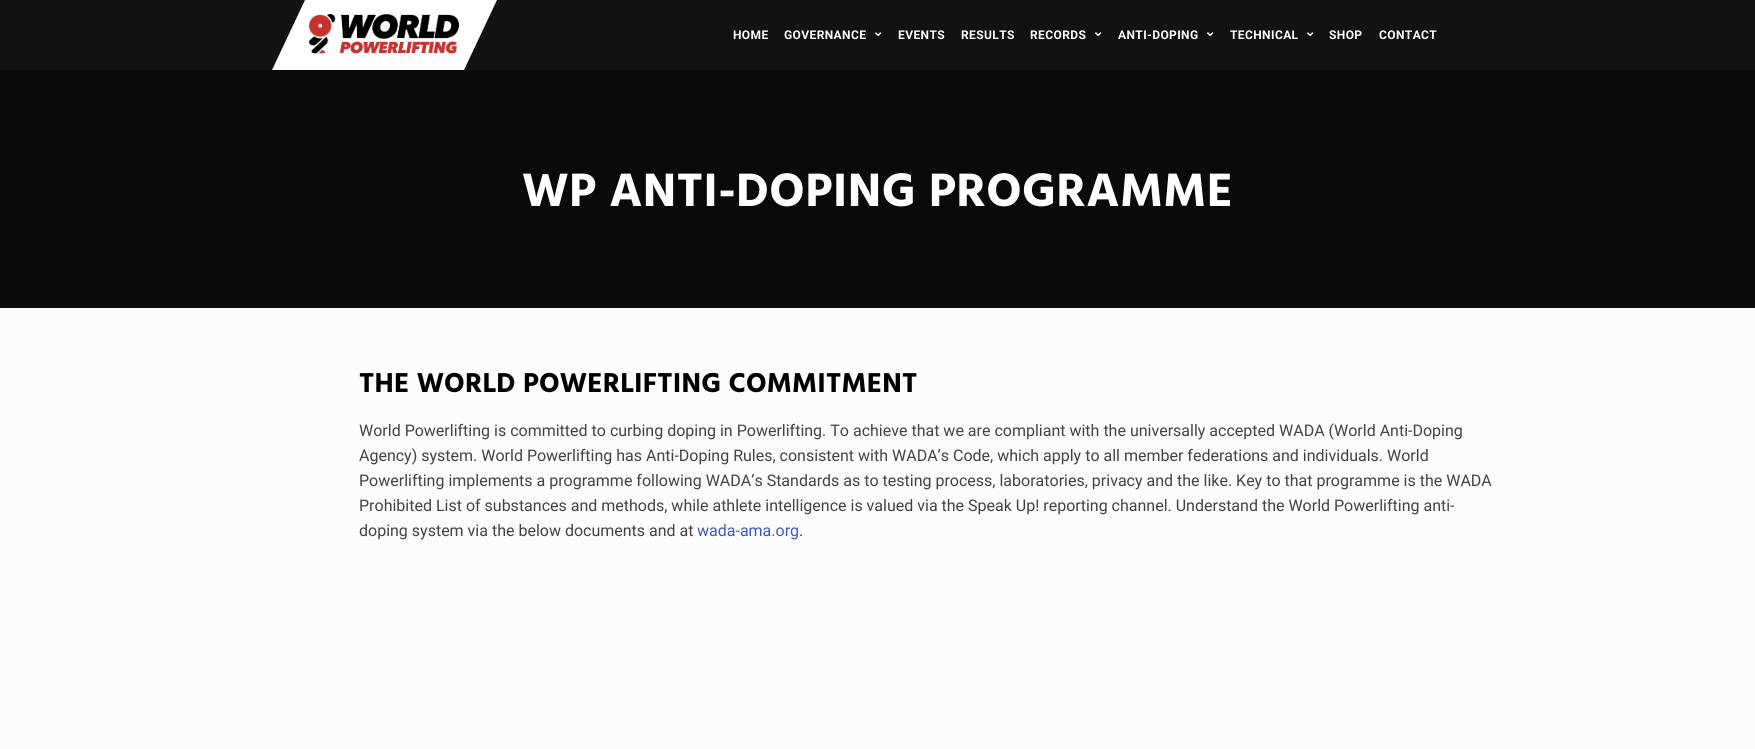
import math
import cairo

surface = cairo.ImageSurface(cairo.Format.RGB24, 1755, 749)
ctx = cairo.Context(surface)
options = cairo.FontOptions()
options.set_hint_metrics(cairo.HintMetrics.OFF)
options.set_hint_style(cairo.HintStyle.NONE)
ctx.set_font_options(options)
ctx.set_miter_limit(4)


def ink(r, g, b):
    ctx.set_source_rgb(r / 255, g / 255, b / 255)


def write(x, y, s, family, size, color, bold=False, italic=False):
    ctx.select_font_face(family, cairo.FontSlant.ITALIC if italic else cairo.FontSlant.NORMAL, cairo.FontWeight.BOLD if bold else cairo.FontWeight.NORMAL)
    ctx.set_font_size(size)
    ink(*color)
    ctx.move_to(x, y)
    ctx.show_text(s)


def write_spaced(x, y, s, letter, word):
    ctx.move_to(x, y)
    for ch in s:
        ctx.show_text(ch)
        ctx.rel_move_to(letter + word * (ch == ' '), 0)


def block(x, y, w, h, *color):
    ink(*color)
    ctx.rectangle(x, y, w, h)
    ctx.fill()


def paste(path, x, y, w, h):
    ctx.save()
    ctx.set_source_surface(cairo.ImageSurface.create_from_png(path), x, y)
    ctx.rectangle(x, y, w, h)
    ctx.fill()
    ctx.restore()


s1 = dict(family="Roboto", size=16, color=(66, 66, 73))
s2 = dict(family="Roboto", size=16, color=(64, 89, 188))

ink(252, 252, 252)
ctx.paint()
block(0, 0, 1755, 70, 18, 18, 20)
ink(255, 255, 255)
ctx.new_path()
ctx.move_to(305, 0)
ctx.line_to(497, 0)
ctx.line_to(464, 70)
ctx.line_to(272, 70)
ctx.close_path()
ctx.fill()
paste("pic1.png", 309, 14, 150, 40)
ctx.select_font_face("Roboto", cairo.FontSlant.NORMAL, cairo.FontWeight.BOLD)
ctx.set_font_size(12)
write_spaced(733, 39, "HOME", 0.4, 0)
write_spaced(784, 39, "GOVERNANCE", 0.4, 0)
paste("pic2.png", 875, 32, 7, 5)
write_spaced(898, 39, "EVENTS", 0.4, 0)
write_spaced(961, 39, "RESULTS", 0.4, 0)
write_spaced(1030, 39, "RECORDS", 0.4, 0)
paste("pic2.png", 1095, 32, 7, 5)
write_spaced(1118, 39, "ANTI-DOPING", 0.4, 0)
paste("pic2.png", 1207, 32, 7, 5)
write_spaced(1230, 39, "TECHNICAL", 0.4, 0)
paste("pic2.png", 1307, 32, 7, 5)
write_spaced(1329, 39, "SHOP", 0.4, 0)
write_spaced(1379, 39, "CONTACT", 0.4, 0)
block(0, 70, 1755, 238, 10, 10, 10)
ctx.select_font_face("Hind", cairo.FontSlant.NORMAL, cairo.FontWeight.BOLD)
ctx.set_font_size(48)
ink(255, 255, 255)
write_spaced(522, 206, "WP ANTI-DOPING PROGRAMME", 0.5, 0)
ctx.set_font_size(28)
ink(0, 0, 0)
write_spaced(359, 392, "THE WORLD POWERLIFTING COMMITMENT", 0.25, 0)
write(359, 436, "World Powerlifting is committed to curbing doping in Powerlifting. To achieve that we are compliant with the universally accepted WADA (World Anti-Doping", **s1)
write(359, 461, "Agency) system. World Powerlifting has Anti-Doping Rules, consistent with WADA’s Code, which apply to all member federations and individuals. World", **s1)
write(359, 486, "Powerlifting implements a programme following WADA’s Standards as to testing process, laboratories, privacy and the like. Key to that programme is the WADA", **s1)
write(359, 511, "Prohibited List of substances and methods, while athlete intelligence is valued via the Speak Up! reporting channel. Understand the World Powerlifting anti-", **s1)
write(359, 536, "doping system via the below documents and at", **s1)
write(697, 536, "wada-ama.org", **s2)
write(799, 536, ".", **s1)
surface.write_to_png("screenshot.png")
